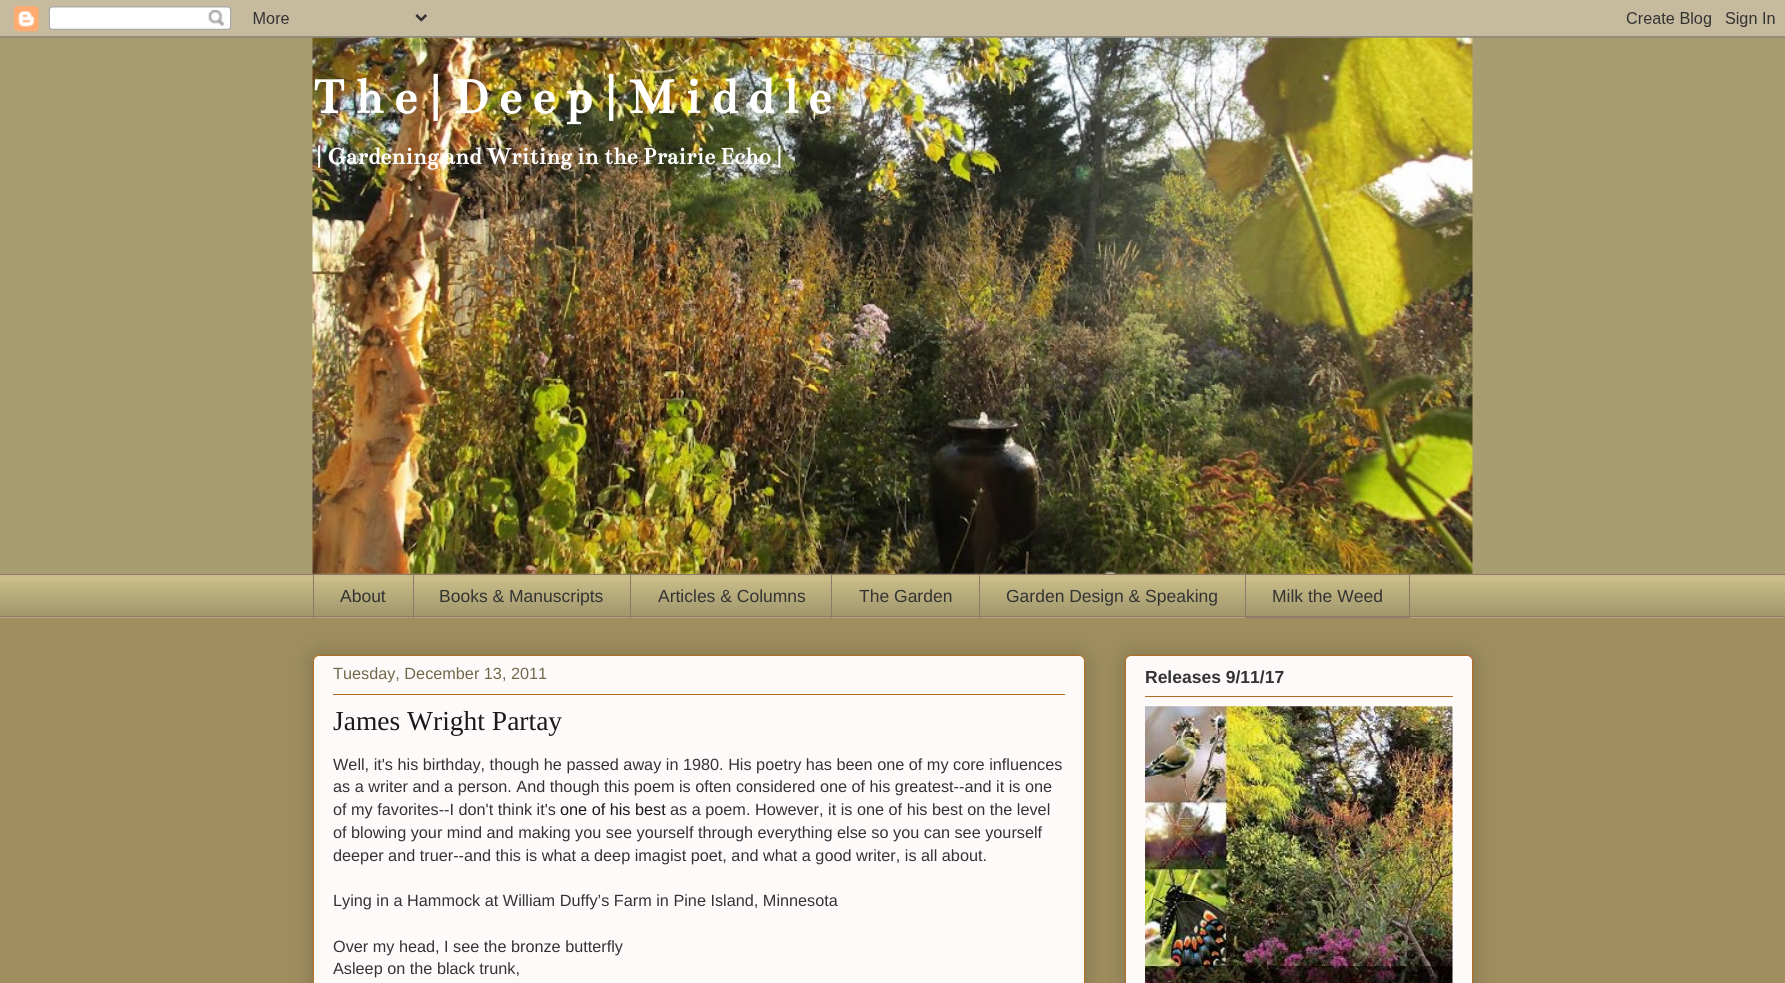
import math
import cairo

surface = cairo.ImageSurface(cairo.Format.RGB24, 1785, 983)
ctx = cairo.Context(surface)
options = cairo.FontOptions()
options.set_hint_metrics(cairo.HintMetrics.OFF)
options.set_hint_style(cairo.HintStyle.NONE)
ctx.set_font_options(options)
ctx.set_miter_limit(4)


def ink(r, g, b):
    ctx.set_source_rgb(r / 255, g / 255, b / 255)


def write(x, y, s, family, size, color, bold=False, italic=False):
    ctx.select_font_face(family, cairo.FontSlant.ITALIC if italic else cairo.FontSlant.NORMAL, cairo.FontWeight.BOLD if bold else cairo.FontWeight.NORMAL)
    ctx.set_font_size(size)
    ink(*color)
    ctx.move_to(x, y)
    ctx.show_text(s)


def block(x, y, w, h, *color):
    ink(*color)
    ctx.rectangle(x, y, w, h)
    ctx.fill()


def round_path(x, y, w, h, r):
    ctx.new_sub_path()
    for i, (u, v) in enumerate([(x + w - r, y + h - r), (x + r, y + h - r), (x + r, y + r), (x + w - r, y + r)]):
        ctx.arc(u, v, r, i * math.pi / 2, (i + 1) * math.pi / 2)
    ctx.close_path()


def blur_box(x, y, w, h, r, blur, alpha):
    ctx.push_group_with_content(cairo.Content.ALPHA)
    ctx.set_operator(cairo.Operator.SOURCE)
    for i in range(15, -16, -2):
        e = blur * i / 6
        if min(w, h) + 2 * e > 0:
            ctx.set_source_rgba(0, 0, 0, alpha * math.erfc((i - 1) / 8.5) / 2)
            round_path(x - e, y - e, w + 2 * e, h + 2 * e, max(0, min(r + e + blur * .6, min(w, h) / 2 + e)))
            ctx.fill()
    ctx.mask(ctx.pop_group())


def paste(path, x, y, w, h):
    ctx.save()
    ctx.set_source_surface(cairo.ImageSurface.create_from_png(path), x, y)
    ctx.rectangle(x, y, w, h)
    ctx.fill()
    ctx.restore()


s1 = dict(family="Bentham", size=52.5, color=(255, 255, 255), bold=True)
s2 = dict(family="Bentham", size=25, color=(255, 255, 255), bold=True)
s3 = dict(family="Liberation Sans", size=17.5, color=(51, 51, 51))
s4 = dict(family="Liberation Sans", size=16.25, color=(112, 105, 75))
s5 = dict(family="Liberation Serif", size=27.5, color=(25, 25, 25))
s6 = dict(family="Liberation Sans", size=16.25, color=(51, 51, 51))
s7 = dict(family="Liberation Sans", size=16.25, color=(25, 25, 25))
s8 = dict(family="Liberation Sans", size=17.5, color=(51, 51, 51), bold=True)

ink(160, 142, 94)
ctx.paint()
block(0, 38, 1785, 536, 168, 157, 112)
paste("pic2.png", 312, 37, 1161, 537)
paste("pic1.png", 0, 0, 1785, 38)
write(313, 113, "T h e | D e e p | M i d d l e", **s1)
write(315, 164, "| Gardening and Writing in the Prairie Echo |", **s2)
block(0, 575, 1785, 43, 202, 189, 136)
paste("pic3.png", 0, 581, 1785, 37)
block(0, 574, 1785, 1, 144, 120, 106)
block(313, 574, 1, 44, 144, 120, 106)
write(340, 602, "About", **s3)
block(413, 574, 1, 44, 144, 120, 106)
write(439, 602, "Books & Manuscripts", **s3)
block(630, 574, 1, 44, 144, 120, 106)
write(658, 602, "Articles & Columns", **s3)
block(831, 574, 1, 44, 144, 120, 106)
write(859, 602, "The Garden", **s3)
block(979, 574, 1, 44, 144, 120, 106)
write(1006, 602, "Garden Design & Speaking", **s3)
ctx.rectangle(1245.5, 574.5, 164, 43)
ink(144, 120, 106)
ctx.set_line_width(1)
ctx.stroke()
write(1272, 602, "Milk the Weed", **s3)
block(0, 616, 1785, 1, 144, 120, 106)
ink(0, 0, 0)
blur_box(313, 655, 772, 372, 6, 12.5, 0.2)
ink(254, 250, 250)
round_path(313.5, 655.5, 771, 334, 5.5)
ctx.fill_preserve()
ink(177, 110, 34)
ctx.stroke()
write(333, 679, "Tuesday, December 13, 2011", **s4)
block(333, 694, 732, 1, 177, 108, 34)
write(333, 730, "James Wright Partay", **s5)
write(333, 770, "Well, it's his birthday, though he passed away in 1980. His poetry has been one of my core influences", **s6)
write(333, 792, "as a writer and a person. And though this poem is often considered one of his greatest--and it is one", **s6)
write(333, 815, "of my favorites--I don't think it's", **s6)
write(560, 815, "one of his best", **s7)
write(670, 815, "as a poem. However, it is one of his best on the level", **s6)
write(333, 838, "of blowing your mind and making you see yourself through everything else so you can see yourself", **s6)
write(333, 861, "deeper and truer--and this is what a deep imagist poet, and what a good writer, is all about.", **s6)
write(333, 906, "Lying in a Hammock at William Duffy’s Farm in Pine Island, Minnesota", **s6)
write(333, 952, "Over my head, I see the bronze butterfly", **s6)
write(333, 974, "Asleep on the black trunk,", **s6)
ink(0, 0, 0)
blur_box(1125, 655, 348, 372, 6, 12.5, 0.2)
ink(254, 250, 250)
round_path(1125.5, 655.5, 347, 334, 5.5)
ctx.fill_preserve()
ink(177, 108, 34)
ctx.stroke()
write(1145, 683, "Releases 9/11/17", **s8)
block(1145, 696, 308, 1, 177, 108, 34)
paste("pic4.png", 1145, 706, 308, 277)
surface.write_to_png("screenshot.png")
